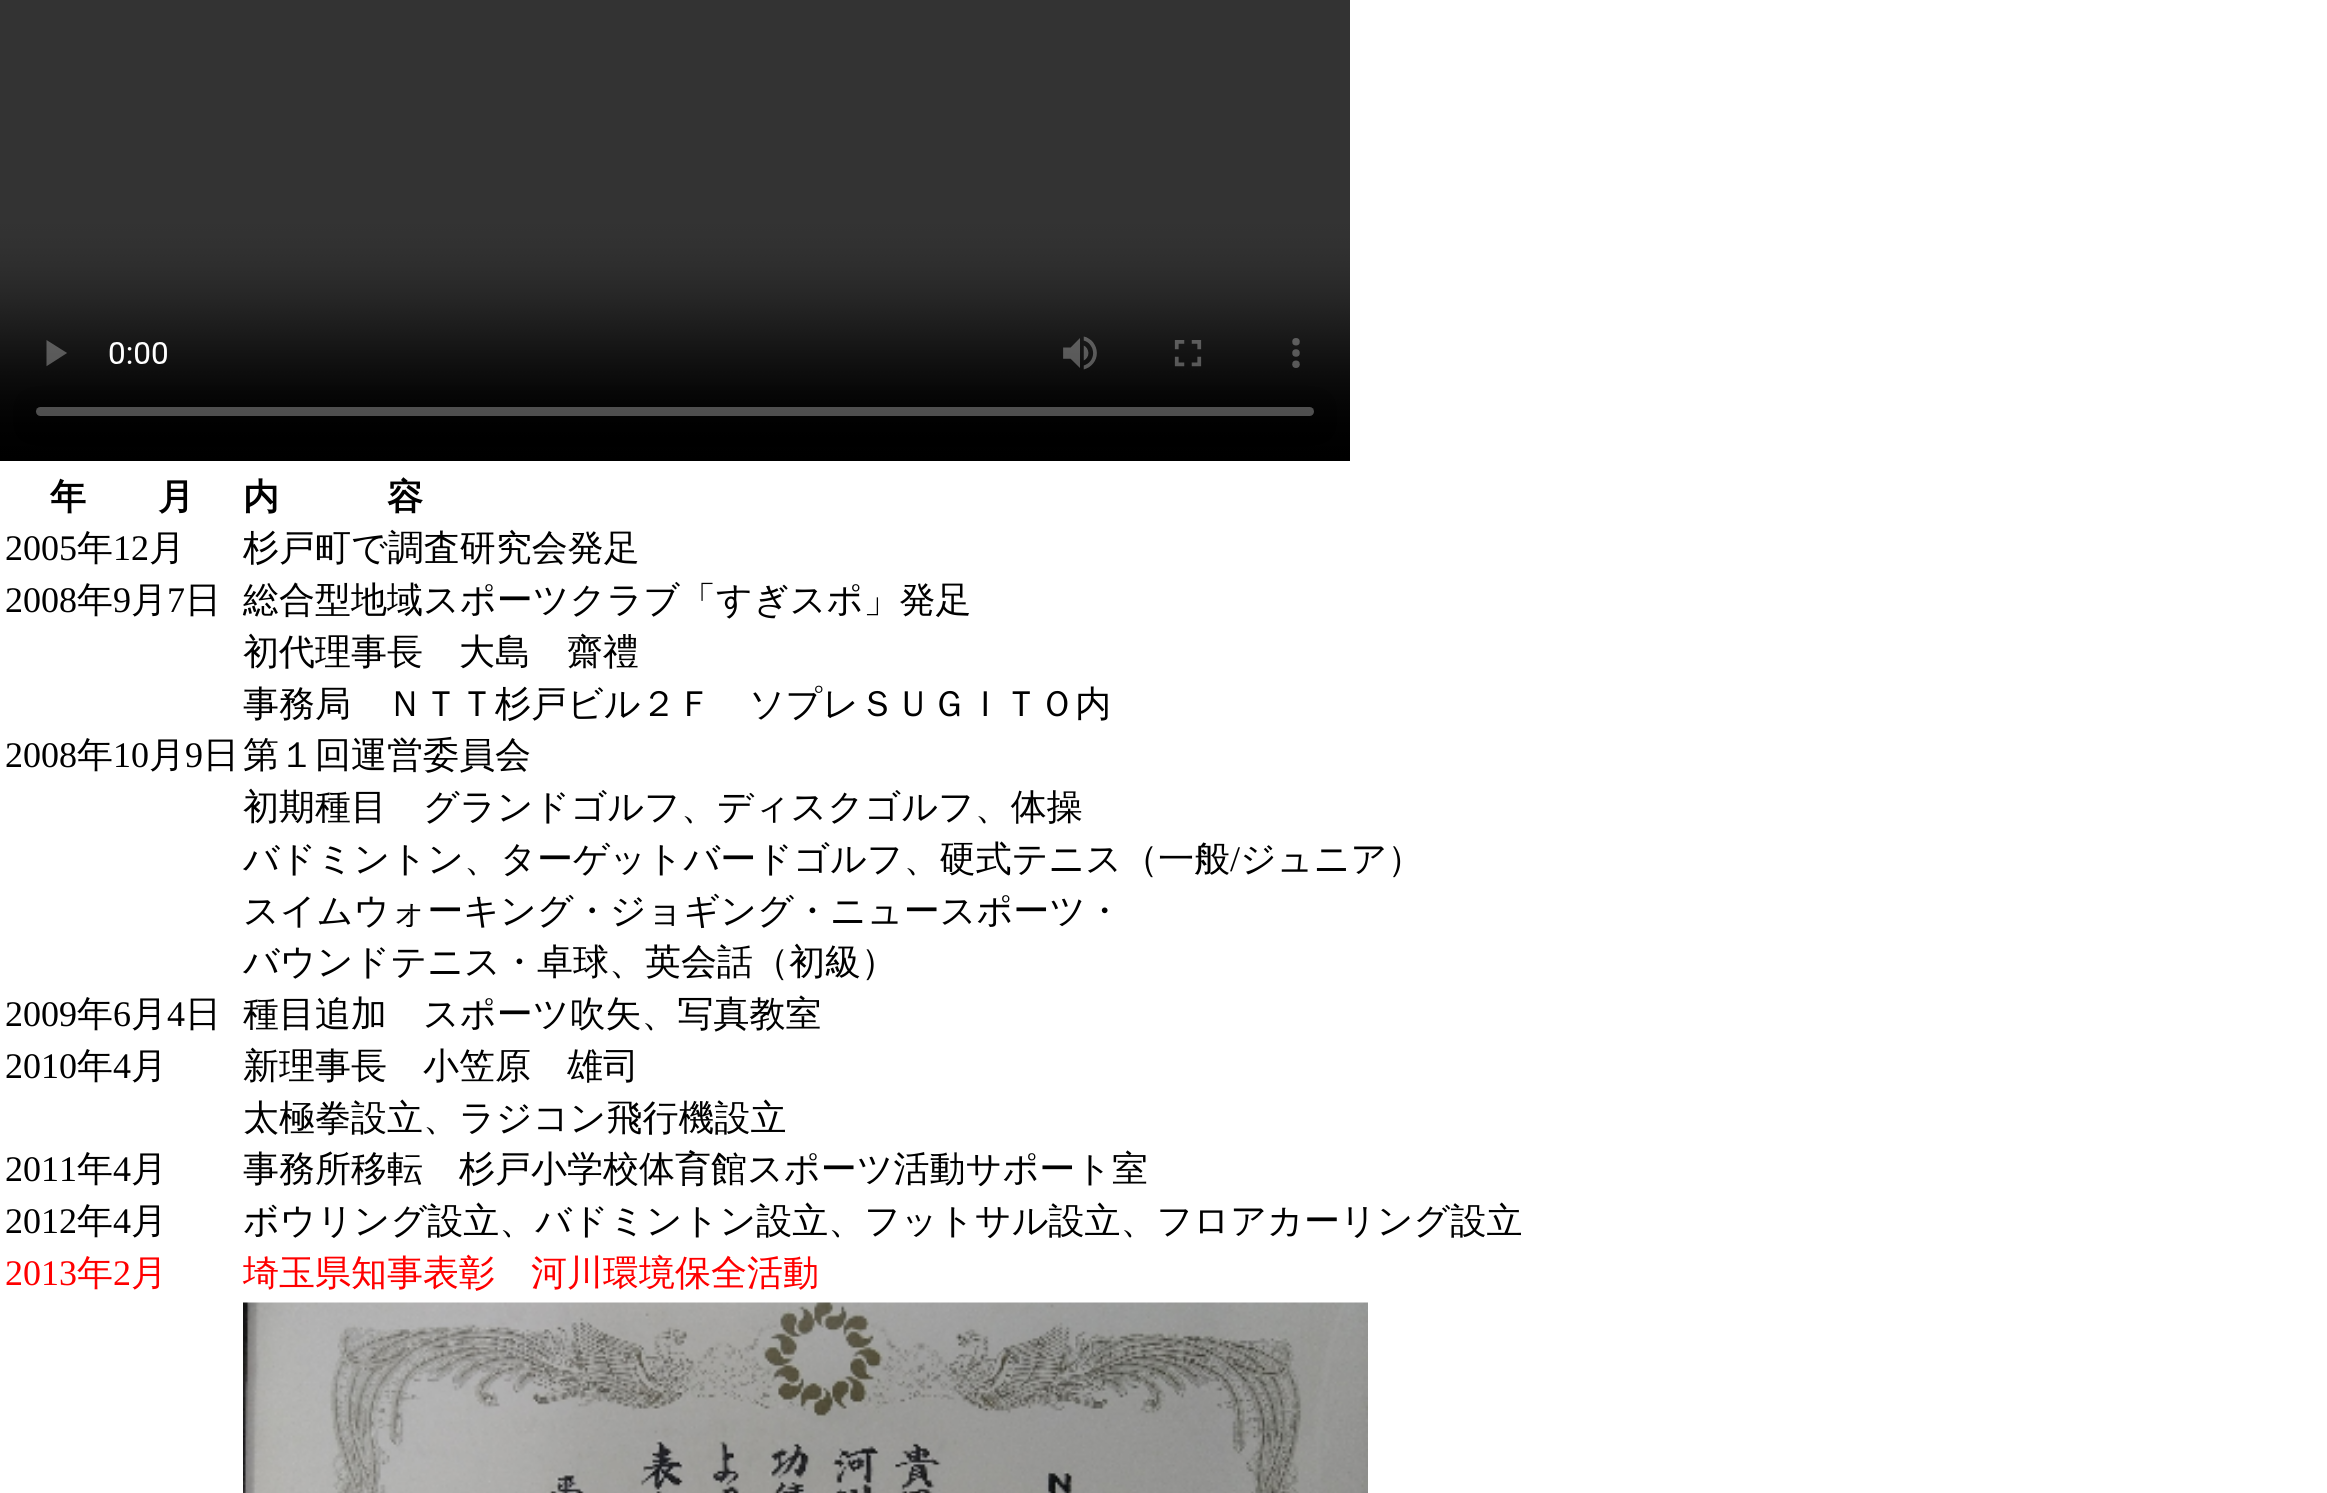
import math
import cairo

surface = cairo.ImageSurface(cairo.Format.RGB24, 2327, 1493)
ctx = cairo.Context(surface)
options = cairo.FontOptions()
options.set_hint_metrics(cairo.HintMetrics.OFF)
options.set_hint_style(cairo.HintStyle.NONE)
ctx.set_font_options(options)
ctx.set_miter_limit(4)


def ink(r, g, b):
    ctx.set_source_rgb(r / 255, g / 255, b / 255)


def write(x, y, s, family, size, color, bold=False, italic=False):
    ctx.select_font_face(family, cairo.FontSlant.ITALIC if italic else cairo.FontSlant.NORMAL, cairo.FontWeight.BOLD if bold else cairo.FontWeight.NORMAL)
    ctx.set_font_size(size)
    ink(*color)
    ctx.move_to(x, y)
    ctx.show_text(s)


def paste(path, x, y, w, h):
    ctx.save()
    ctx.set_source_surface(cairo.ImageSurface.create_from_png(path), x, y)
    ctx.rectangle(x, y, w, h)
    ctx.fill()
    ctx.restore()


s1 = dict(family="WenQuanYi Zen Hei", size=36, color=(0, 0, 0), bold=True)
s2 = dict(family="Liberation Serif", size=36, color=(0, 0, 0))
s3 = dict(family="WenQuanYi Zen Hei Medium", size=36, color=(0, 0, 0))
s4 = dict(family="Liberation Serif", size=36, color=(255, 0, 0))
s5 = dict(family="WenQuanYi Zen Hei Medium", size=36, color=(255, 0, 0))

ink(255, 255, 255)
ctx.paint()
paste("pic1.png", 0, 0, 1350, 461)
write(50, 509, "年　　月", **s1)
write(243, 509, "内　　　容", **s1)
write(5, 560, "2005", **s2)
write(77, 560, "年", **s3)
write(113, 560, "12", **s2)
write(149, 560, "月", **s3)
write(243, 560, "杉戸町で調査研究会発足", **s3)
write(5, 612, "2008", **s2)
write(77, 612, "年", **s3)
write(113, 612, "9", **s2)
write(131, 612, "月", **s3)
write(167, 612, "7", **s2)
write(185, 612, "日", **s3)
write(243, 612, "総合型地域スポーツクラブ「すぎスポ」発足", **s3)
write(243, 664, "初代理事長　大島　齋禮", **s3)
write(243, 716, "事務局　ＮＴＴ杉戸ビル２Ｆ　ソプレＳＵＧＩＴＯ内", **s3)
write(5, 767, "2008", **s2)
write(77, 767, "年", **s3)
write(113, 767, "10", **s2)
write(149, 767, "月", **s3)
write(185, 767, "9", **s2)
write(203, 767, "日", **s3)
write(243, 767, "第１回運営委員会", **s3)
write(243, 819, "初期種目　グランドゴルフ、ディスクゴルフ、体操", **s3)
write(243, 871, "バドミントン、ターゲットバードゴルフ、硬式テニス（一般", **s3)
write(1230, 871, "/", **s2)
write(1240, 871, "ジュニア）", **s3)
write(243, 923, "スイムウォーキング・ジョギング・ニュースポーツ・", **s3)
write(243, 974, "バウンドテニス・卓球、英会話（初級）", **s3)
write(5, 1026, "2009", **s2)
write(77, 1026, "年", **s3)
write(113, 1026, "6", **s2)
write(131, 1026, "月", **s3)
write(167, 1026, "4", **s2)
write(185, 1026, "日", **s3)
write(243, 1026, "種目追加　スポーツ吹矢、写真教室", **s3)
write(5, 1078, "2010", **s2)
write(77, 1078, "年", **s3)
write(113, 1078, "4", **s2)
write(131, 1078, "月", **s3)
write(243, 1078, "新理事長　小笠原　雄司", **s3)
write(243, 1130, "太極拳設立、ラジコン飛行機設立", **s3)
write(5, 1181, "2011", **s2)
write(77, 1181, "年", **s3)
write(113, 1181, "4", **s2)
write(131, 1181, "月", **s3)
write(243, 1181, "事務所移転　杉戸小学校体育館スポーツ活動サポート室", **s3)
write(5, 1233, "2012", **s2)
write(77, 1233, "年", **s3)
write(113, 1233, "4", **s2)
write(131, 1233, "月", **s3)
write(243, 1233, "ボウリング設立、バドミントン設立、フットサル設立、フロアカーリング設立", **s3)
write(5, 1285, "2013", **s4)
write(77, 1285, "年", **s5)
write(113, 1285, "2", **s4)
write(131, 1285, "月", **s5)
write(243, 1285, "埼玉県知事表彰　河川環境保全活動", **s5)
paste("pic2.png", 243, 1302, 1125, 191)
surface.write_to_png("screenshot.png")
